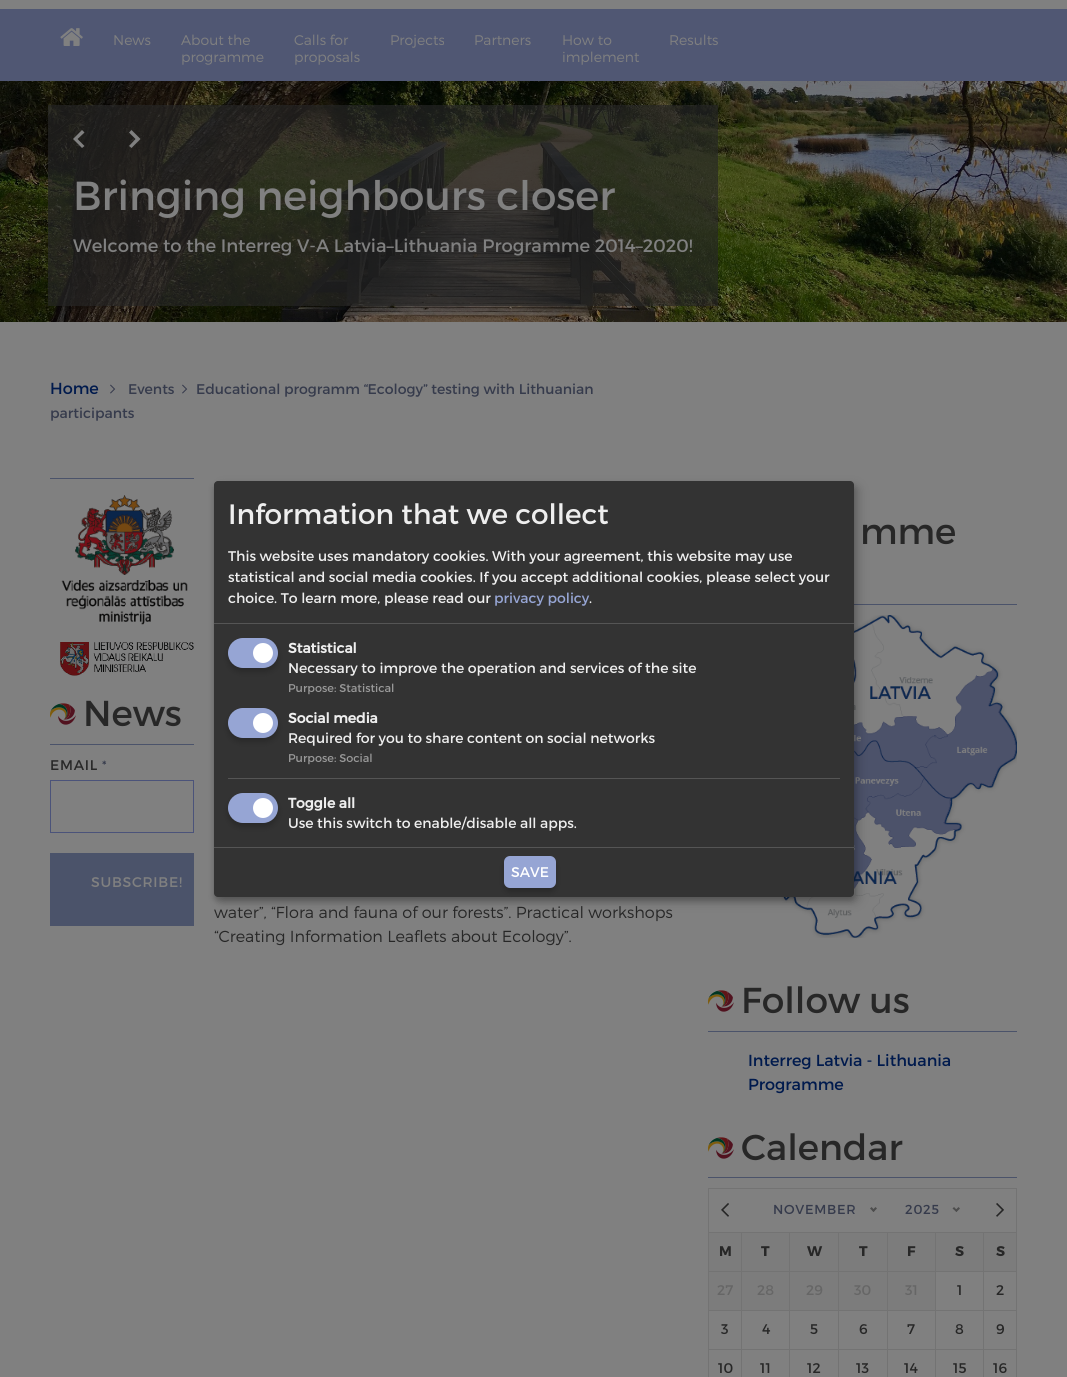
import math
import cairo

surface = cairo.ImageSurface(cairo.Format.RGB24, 1067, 1377)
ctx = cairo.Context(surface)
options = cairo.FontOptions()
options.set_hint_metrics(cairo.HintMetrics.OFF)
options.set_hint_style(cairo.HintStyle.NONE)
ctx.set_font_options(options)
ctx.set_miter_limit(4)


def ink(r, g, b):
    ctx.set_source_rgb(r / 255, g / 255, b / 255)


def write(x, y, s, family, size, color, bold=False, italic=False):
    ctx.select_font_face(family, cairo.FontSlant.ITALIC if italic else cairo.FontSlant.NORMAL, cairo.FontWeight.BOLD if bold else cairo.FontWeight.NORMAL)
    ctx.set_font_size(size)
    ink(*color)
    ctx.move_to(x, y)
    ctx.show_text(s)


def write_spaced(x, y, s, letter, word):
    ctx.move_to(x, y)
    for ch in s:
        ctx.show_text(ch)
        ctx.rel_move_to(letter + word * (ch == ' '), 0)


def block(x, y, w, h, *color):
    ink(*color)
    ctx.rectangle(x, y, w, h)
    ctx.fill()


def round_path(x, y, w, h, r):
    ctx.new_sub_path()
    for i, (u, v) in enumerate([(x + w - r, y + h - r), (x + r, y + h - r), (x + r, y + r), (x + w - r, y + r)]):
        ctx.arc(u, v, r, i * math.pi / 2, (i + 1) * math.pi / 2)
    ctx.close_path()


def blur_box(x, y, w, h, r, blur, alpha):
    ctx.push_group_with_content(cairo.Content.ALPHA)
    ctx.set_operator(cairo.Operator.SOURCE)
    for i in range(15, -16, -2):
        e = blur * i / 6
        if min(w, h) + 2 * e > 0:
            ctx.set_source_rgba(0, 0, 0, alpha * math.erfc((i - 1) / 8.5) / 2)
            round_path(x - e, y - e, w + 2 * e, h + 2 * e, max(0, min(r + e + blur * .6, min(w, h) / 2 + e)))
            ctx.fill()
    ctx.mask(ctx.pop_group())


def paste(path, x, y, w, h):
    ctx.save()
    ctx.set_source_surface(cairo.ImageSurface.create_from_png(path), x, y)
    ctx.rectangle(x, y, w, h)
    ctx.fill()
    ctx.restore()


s1 = dict(family="Montserrat Light", size=14, color=(128, 128, 128))
s2 = dict(family="Montserrat", size=40.5, color=(128, 128, 128))
s3 = dict(family="Montserrat", size=18, color=(128, 128, 128))
s4 = dict(family="Montserrat", size=16, color=(0, 26, 77))
s5 = dict(family="Montserrat", size=14.05, color=(54, 59, 76))
s6 = dict(family="Montserrat", size=36, color=(39, 39, 39))
s7 = dict(family="Montserrat", size=14, color=(39, 39, 39), bold=True)
s8 = dict(family="Montserrat", size=14, color=(102, 102, 102))
s9 = dict(family="Montserrat", size=14, color=(39, 39, 39))
s10 = dict(family="Montserrat Light", size=16, color=(39, 39, 39))
s11 = dict(family="Montserrat", size=28, color=(238, 238, 238))
s12 = dict(family="Montserrat", size=14, color=(238, 238, 238))
s13 = dict(family="Montserrat", size=14, color=(150, 165, 212))
s14 = dict(family="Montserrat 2", size=14, color=(238, 238, 238), bold=True)
s15 = dict(family="Montserrat", size=11.25, color=(153, 153, 153))
s16 = dict(family="Montserrat", size=14, color=(255, 255, 255))

ink(128, 128, 128)
ctx.paint()
block(0, 9, 1067, 72, 80, 87, 115)
paste("pic1.png", 60, 28, 23, 18)
write(113, 45, "News", **s1)
write(181, 45, "About the", **s1)
write(181, 62, "programme", **s1)
write(294, 45, "Calls for", **s1)
write(294, 62, "proposals", **s1)
write(390, 45, "Projects", **s1)
write(474, 45, "Partners", **s1)
write(562, 45, "How to", **s1)
write(562, 62, "implement", **s1)
write(669, 45, "Results", **s1)
paste("pic2.png", 0, 81, 1067, 241)
ctx.set_source_rgba(0.153, 0.153, 0.153, 0.66)
ctx.rectangle(48, 105, 670, 201)
ctx.fill()
ink(128, 128, 128)
ctx.new_path()
ctx.move_to(82, 148)
ctx.line_to(73, 139)
ctx.line_to(82, 130)
ctx.line_to(84.5, 132.5)
ctx.line_to(77.5, 139)
ctx.line_to(84.5, 146)
ctx.close_path()
ctx.fill()
ctx.new_path()
ctx.move_to(131.5, 130)
ctx.line_to(140.5, 139)
ctx.line_to(131.5, 148)
ctx.line_to(129, 146)
ctx.line_to(135.5, 139)
ctx.line_to(129, 132.5)
ctx.close_path()
ctx.fill()
write(73, 210, "Bringing neighbours closer", **s2)
write(73, 252, "Welcome to the Interreg V-A Latvia–Lithuania Programme 2014–2020!", **s3)
write(50, 394, "Home", **s4)
paste("pic3.png", 110, 384, 6, 10)
write(128, 394, "Events", **s5)
paste("pic3.png", 182, 384, 6, 10)
write(196, 394, "Educational programm “Ecology” testing with Lithuanian", **s5)
write(50, 418, "participants", **s5)
block(50, 478, 144, 1, 75, 83, 106)
paste("pic4.png", 61, 495, 127, 130)
paste("pic5.png", 60, 642, 134, 34)
paste("pic6.png", 50, 703, 26, 22)
block(50, 744, 144, 1, 75, 83, 106)
write(83, 726, "News", **s6)
ctx.set_font_size(14)
write_spaced(50, 770, "EMAIL", 0.75, 0)
ctx.set_font_size(13)
ink(54, 59, 76)
write_spaced(102, 770, "*", 1, 0)
ctx.rectangle(50.5, 780.5, 143, 52)
ink(75, 83, 122)
ctx.set_line_width(1)
ctx.stroke()
block(50, 853, 144, 73, 75, 83, 106)
ctx.set_font_size(14)
ink(128, 128, 128)
write_spaced(91, 887, "SUBSCRIBE!", 0.75, 0)
block(854, 604, 163, 1, 75, 83, 106)
write(860, 544, "mme", **s6)
paste("pic7.png", 781, 615, 236, 323)
paste("pic6.png", 708, 990, 26, 22)
block(708, 1031, 309, 1, 75, 83, 106)
write(741, 1013, "Follow us", **s6)
write(748, 1066, "Interreg Latvia - Lithuania", **s4)
write(748, 1090, "Programme", **s4)
paste("pic6.png", 708, 1137, 26, 22)
block(708, 1177, 309, 1, 75, 83, 106)
write(741, 1160, "Calendar", **s6)
block(708, 1188, 309, 1, 115, 115, 115)
block(1016, 1188, 1, 189, 115, 115, 115)
block(708, 1188, 1, 189, 115, 115, 115)
paste("pic8.png", 721, 1203, 8, 14)
ctx.set_font_size(13)
ink(54, 59, 76)
write_spaced(773, 1214, "NOVEMBER", 0.75, 0)
ink(77, 77, 77)
ctx.new_path()
ctx.move_to(875.5, 1207)
ctx.line_to(877, 1208.5)
ctx.line_to(873.5, 1212)
ctx.line_to(872, 1210.5)
ctx.close_path()
ctx.fill()
ctx.new_path()
ctx.move_to(871.5, 1207)
ctx.line_to(875, 1210.5)
ctx.line_to(873.5, 1212)
ctx.line_to(870, 1208.5)
ctx.close_path()
ctx.fill()
ink(54, 59, 76)
write_spaced(905, 1214, "2025", 0.75, 0)
ink(77, 77, 77)
ctx.new_path()
ctx.move_to(958.5, 1207)
ctx.line_to(960, 1208.5)
ctx.line_to(956.5, 1212)
ctx.line_to(955, 1210.5)
ctx.close_path()
ctx.fill()
ctx.new_path()
ctx.move_to(954, 1207)
ctx.line_to(957.5, 1210.5)
ctx.line_to(956.5, 1212)
ctx.line_to(952.5, 1208.5)
ctx.close_path()
ctx.fill()
paste("pic9.png", 996, 1203, 8, 14)
block(709, 1233, 32, 38, 124, 124, 124)
block(983, 1232, 34, 1, 115, 115, 115)
block(983, 1271, 34, 1, 115, 115, 115)
block(983, 1310, 34, 1, 115, 115, 115)
block(983, 1349, 34, 1, 115, 115, 115)
block(983, 1349, 1, 28, 115, 115, 115)
block(935, 1349, 49, 1, 115, 115, 115)
block(983, 1310, 1, 40, 115, 115, 115)
block(935, 1310, 49, 1, 115, 115, 115)
block(983, 1271, 1, 40, 115, 115, 115)
block(935, 1271, 49, 1, 115, 115, 115)
block(983, 1232, 1, 40, 115, 115, 115)
block(935, 1232, 49, 1, 115, 115, 115)
block(935, 1349, 1, 28, 115, 115, 115)
block(887, 1349, 49, 1, 115, 115, 115)
block(935, 1310, 1, 40, 115, 115, 115)
block(887, 1310, 49, 1, 115, 115, 115)
block(935, 1271, 1, 40, 115, 115, 115)
block(887, 1271, 49, 1, 115, 115, 115)
block(935, 1232, 1, 40, 115, 115, 115)
block(887, 1232, 49, 1, 115, 115, 115)
block(887, 1349, 1, 28, 115, 115, 115)
block(838, 1349, 50, 1, 115, 115, 115)
block(887, 1310, 1, 40, 115, 115, 115)
block(838, 1310, 50, 1, 115, 115, 115)
block(887, 1271, 1, 40, 115, 115, 115)
block(838, 1271, 50, 1, 115, 115, 115)
block(887, 1232, 1, 40, 115, 115, 115)
block(838, 1232, 50, 1, 115, 115, 115)
block(838, 1349, 1, 28, 115, 115, 115)
block(789, 1349, 50, 1, 115, 115, 115)
block(838, 1310, 1, 40, 115, 115, 115)
block(789, 1310, 50, 1, 115, 115, 115)
block(838, 1271, 1, 40, 115, 115, 115)
block(789, 1271, 50, 1, 115, 115, 115)
block(838, 1232, 1, 40, 115, 115, 115)
block(789, 1232, 50, 1, 115, 115, 115)
block(789, 1349, 1, 28, 115, 115, 115)
block(741, 1349, 49, 1, 115, 115, 115)
block(789, 1310, 1, 40, 115, 115, 115)
block(741, 1310, 49, 1, 115, 115, 115)
block(789, 1271, 1, 40, 115, 115, 115)
block(741, 1271, 49, 1, 115, 115, 115)
block(789, 1232, 1, 40, 115, 115, 115)
block(741, 1232, 49, 1, 115, 115, 115)
block(741, 1349, 1, 28, 115, 115, 115)
block(708, 1349, 34, 1, 115, 115, 115)
block(741, 1310, 1, 40, 115, 115, 115)
block(708, 1310, 34, 1, 115, 115, 115)
block(741, 1271, 1, 40, 115, 115, 115)
block(708, 1271, 34, 1, 115, 115, 115)
block(741, 1232, 1, 40, 115, 115, 115)
block(708, 1232, 34, 1, 115, 115, 115)
write(719, 1256, "M", **s7)
block(742, 1233, 47, 38, 124, 124, 124)
write(761, 1256, "T", **s7)
block(790, 1233, 48, 38, 124, 124, 124)
write(807, 1256, "W", **s7)
block(839, 1233, 48, 38, 124, 124, 124)
write(859, 1256, "T", **s7)
block(888, 1233, 47, 38, 124, 124, 124)
write(907, 1256, "F", **s7)
block(936, 1233, 47, 38, 124, 124, 124)
write(955, 1256, "S", **s7)
block(984, 1233, 32, 38, 124, 124, 124)
write(996, 1256, "S", **s7)
block(709, 1272, 32, 38, 124, 124, 124)
write(717, 1295, "27", **s8)
block(742, 1272, 47, 38, 124, 124, 124)
write(757, 1295, "28", **s8)
block(790, 1272, 48, 38, 124, 124, 124)
write(806, 1295, "29", **s8)
block(839, 1272, 48, 38, 124, 124, 124)
write(854, 1295, "30", **s8)
block(888, 1272, 47, 38, 124, 124, 124)
write(905, 1295, "31", **s8)
write(957, 1295, "1", **s9)
write(996, 1295, "2", **s9)
write(721, 1334, "3", **s9)
write(762, 1334, "4", **s9)
write(810, 1334, "5", **s9)
write(859, 1334, "6", **s9)
write(907, 1334, "7", **s9)
write(955, 1334, "8", **s9)
write(996, 1334, "9", **s9)
write(718, 1373, "10", **s9)
write(760, 1373, "11", **s9)
write(807, 1373, "12", **s9)
write(856, 1373, "13", **s9)
write(904, 1373, "14", **s9)
write(953, 1373, "15", **s9)
write(993, 1373, "16", **s9)
write(214, 918, "water”, “Flora and fauna of our forests”. Practical workshops", **s10)
write(214, 942, "“Creating Information Leaflets about Ecology”.", **s10)
ink(0, 0, 0)
blur_box(219, 486, 640, 416, 4, 5, 0.19)
blur_box(214, 485, 640, 416, 4, 3, 0.2)
ink(51, 51, 51)
round_path(214, 481, 640, 416, 4)
ctx.fill()
block(214, 623, 640, 1, 85, 85, 85)
write(228, 524, "Information that we collect", **s11)
write(228, 561, "This website uses mandatory cookies. With your agreement, this website may use", **s12)
write(228, 582, "statistical and social media cookies. If you accept additional cookies, please select your", **s12)
write(228, 603, "choice. To learn more, please read our", **s12)
write(494, 603, "privacy policy", **s13)
write(589, 603, ".", **s12)
ink(0, 0, 0)
blur_box(228, 642, 50, 30, 15, 3, 0.2)
ink(150, 165, 212)
round_path(228, 638, 50, 30, 15)
ctx.fill()
ink(255, 255, 255)
ctx.arc(263, 653, 10, 0, 2 * math.pi)
ctx.fill()
write(288, 653, "Statistical", **s14)
write(288, 673, "Necessary to improve the operation and services of the site", **s12)
write(288, 692, "Purpose: Statistical", **s15)
ink(0, 0, 0)
blur_box(228, 712, 50, 30, 15, 3, 0.2)
ink(150, 165, 212)
round_path(228, 708, 50, 30, 15)
ctx.fill()
ink(255, 255, 255)
ctx.arc(263, 723, 10, 0, 2 * math.pi)
ctx.fill()
write(288, 723, "Social media", **s14)
write(288, 743, "Required for you to share content on social networks", **s12)
write(288, 762, "Purpose: Social", **s15)
block(228, 778, 612, 1, 85, 85, 85)
ink(0, 0, 0)
blur_box(228, 797, 50, 30, 15, 3, 0.2)
ink(150, 165, 212)
round_path(228, 793, 50, 30, 15)
ctx.fill()
ink(255, 255, 255)
ctx.arc(263, 808, 10, 0, 2 * math.pi)
ctx.fill()
write(288, 808, "Toggle all", **s14)
write(288, 828, "Use this switch to enable/disable all apps.", **s12)
block(214, 847, 640, 1, 85, 85, 85)
ink(0, 0, 0)
blur_box(504, 860, 52, 32, 6, 3, 0.2)
ink(150, 165, 212)
round_path(504, 856, 52, 32, 6)
ctx.fill()
write(511, 877, "SAVE", **s16)
surface.write_to_png("screenshot.png")
